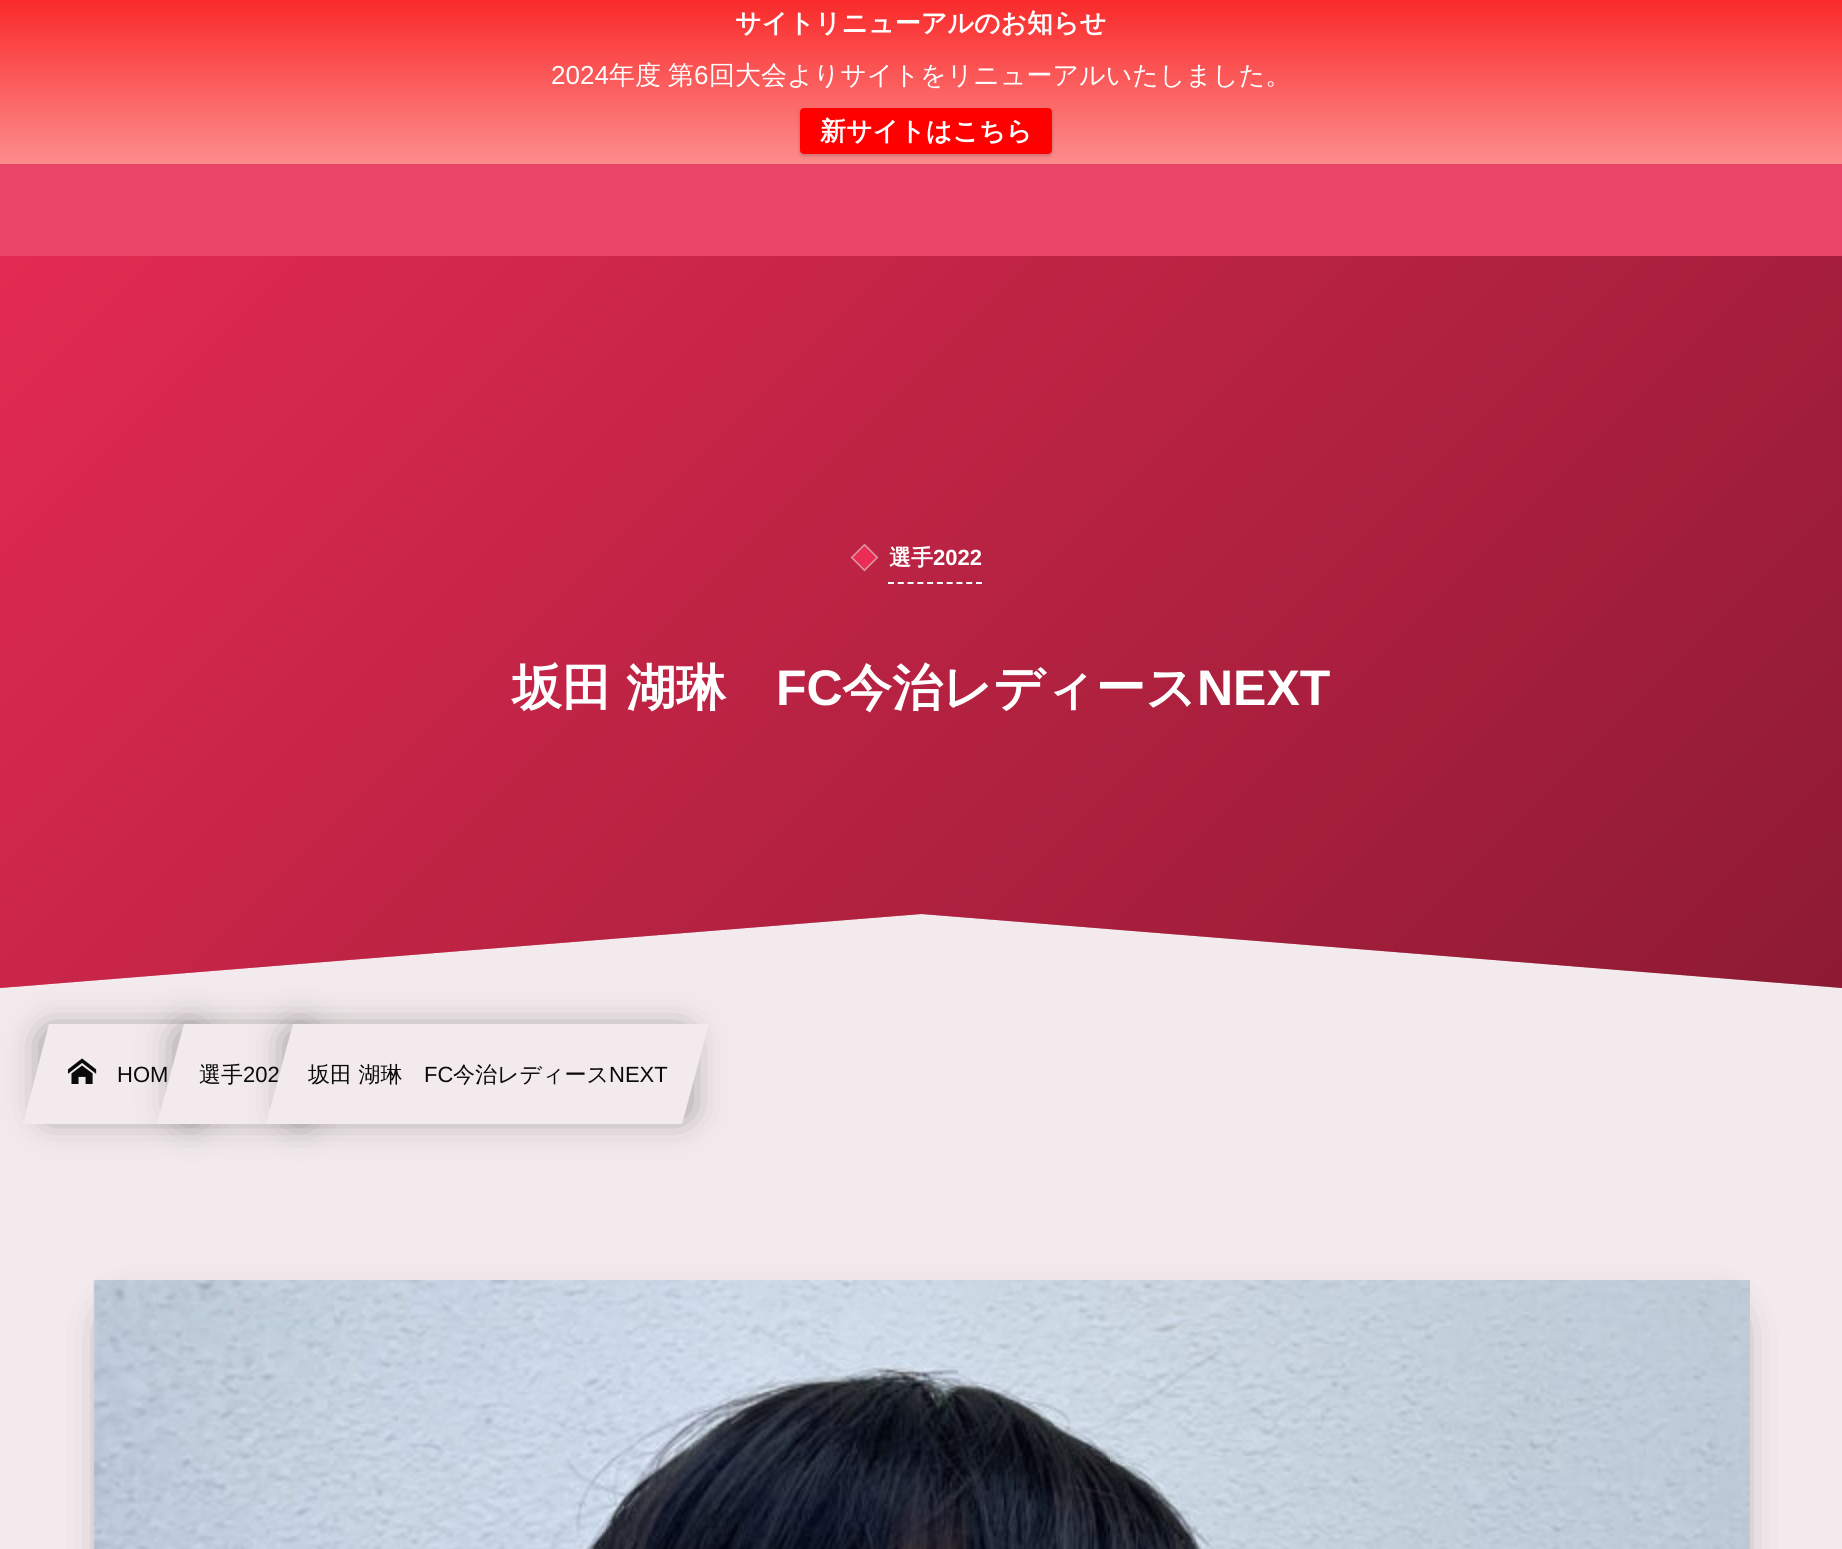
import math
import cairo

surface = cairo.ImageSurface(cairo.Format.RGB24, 1842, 1549)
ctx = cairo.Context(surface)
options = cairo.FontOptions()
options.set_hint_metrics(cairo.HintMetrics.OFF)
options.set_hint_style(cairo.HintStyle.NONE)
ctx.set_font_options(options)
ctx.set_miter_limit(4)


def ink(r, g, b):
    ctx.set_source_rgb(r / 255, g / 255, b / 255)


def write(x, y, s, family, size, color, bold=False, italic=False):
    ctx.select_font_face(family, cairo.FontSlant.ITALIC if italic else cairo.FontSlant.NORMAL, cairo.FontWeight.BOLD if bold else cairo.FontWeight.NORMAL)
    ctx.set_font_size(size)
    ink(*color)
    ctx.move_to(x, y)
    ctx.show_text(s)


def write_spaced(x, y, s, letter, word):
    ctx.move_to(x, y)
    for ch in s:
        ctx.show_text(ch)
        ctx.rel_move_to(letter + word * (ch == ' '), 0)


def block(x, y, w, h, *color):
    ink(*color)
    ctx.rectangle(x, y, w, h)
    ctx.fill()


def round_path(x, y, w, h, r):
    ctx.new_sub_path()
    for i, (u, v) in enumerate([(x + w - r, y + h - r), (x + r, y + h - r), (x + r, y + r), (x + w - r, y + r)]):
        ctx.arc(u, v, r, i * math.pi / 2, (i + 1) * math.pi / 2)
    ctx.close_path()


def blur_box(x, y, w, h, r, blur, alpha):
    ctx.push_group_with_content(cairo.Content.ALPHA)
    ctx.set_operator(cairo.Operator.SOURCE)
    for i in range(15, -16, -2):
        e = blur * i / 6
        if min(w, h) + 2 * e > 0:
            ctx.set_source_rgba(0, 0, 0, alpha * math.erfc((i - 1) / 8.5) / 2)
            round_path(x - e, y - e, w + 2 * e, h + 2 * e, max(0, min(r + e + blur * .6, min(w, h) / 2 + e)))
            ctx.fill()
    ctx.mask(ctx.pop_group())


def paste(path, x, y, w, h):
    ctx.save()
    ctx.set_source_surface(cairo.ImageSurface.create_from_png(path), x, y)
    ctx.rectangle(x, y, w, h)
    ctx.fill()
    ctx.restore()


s1 = dict(family="WenQuanYi Zen Hei", size=26, color=(255, 255, 255), bold=True)
s2 = dict(family="Liberation Sans", size=26, color=(255, 255, 255))
s3 = dict(family="WenQuanYi Zen Hei Medium", size=26, color=(255, 255, 255))
s4 = dict(family="WenQuanYi Zen Hei", size=22, color=(255, 255, 255), bold=True)
s5 = dict(family="Liberation Sans", size=22, color=(255, 255, 255), bold=True)
s6 = dict(family="Liberation Sans", size=50, color=(255, 255, 255), bold=True)
s7 = dict(family="WenQuanYi Zen Hei", size=50, color=(255, 255, 255), bold=True)
s8 = dict(family="Liberation Sans", size=22, color=(10, 10, 10))
s9 = dict(family="WenQuanYi Zen Hei Medium", size=22, color=(10, 10, 10))

ink(242, 234, 236)
ctx.paint()
gradient = cairo.LinearGradient(214, -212, 1628, 1202)
gradient.add_color_stop_rgba(0, 0.922, 0.173, 0.333, 1)
gradient.add_color_stop_rgba(1, 0.553, 0.102, 0.2, 1)
ctx.set_source(gradient)
ctx.new_path()
ctx.move_to(0, 2)
ctx.line_to(0, 988)
ctx.line_to(921, 914)
ctx.line_to(1842, 988)
ctx.line_to(1842, 2)
ctx.close_path()
ctx.fill()
gradient = cairo.LinearGradient(214, -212, 1628, 1202)
gradient.add_color_stop_rgba(0, 0.922, 0.173, 0.333, 0.48)
gradient.add_color_stop_rgba(1, 0.553, 0.102, 0.2, 0.48)
ctx.set_source(gradient)
ctx.new_path()
ctx.move_to(0, 2)
ctx.line_to(0, 988)
ctx.line_to(921, 914)
ctx.line_to(1842, 988)
ctx.line_to(1842, 2)
ctx.close_path()
ctx.fill()
gradient = cairo.LinearGradient(921, 0, 921, 164)
gradient.add_color_stop_rgba(0, 0.98, 0.165, 0.165, 1)
gradient.add_color_stop_rgba(1, 0.992, 0.553, 0.553, 1)
ctx.set_source(gradient)
ctx.rectangle(0, 0, 1842, 164)
ctx.fill()
write(735, 32, "サイトリニューアルのお知らせ", **s1)
write(551, 84, "2024", **s2)
ctx.select_font_face("WenQuanYi Zen Hei Medium")
write_spaced(609, 84, "年度 第", 0, -1)
write(694, 84, "6", **s2)
write(709, 84, "回大会よりサイトをリニューアルいたしました。", **s3)
ink(0, 0, 0)
blur_box(800, 110, 252, 46, 4, 2, 0.2)
ink(255, 0, 0)
round_path(800, 108, 252, 46, 4)
ctx.fill()
write(820, 140, "新サイトはこちら", **s1)
block(0, 164, 1842, 92, 234, 68, 104)
ctx.new_path()
ctx.move_to(864.5, 545)
ctx.line_to(877, 557.5)
ctx.line_to(864.5, 570)
ctx.line_to(852, 557.5)
ctx.close_path()
ink(221, 145, 162)
ctx.stroke()
ink(235, 44, 85)
ctx.new_path()
ctx.move_to(864.5, 546)
ctx.line_to(876, 557.5)
ctx.line_to(864.5, 569)
ctx.line_to(853, 557.5)
ctx.close_path()
ctx.fill()
ctx.new_path()
ctx.move_to(888, 583)
ctx.line_to(982, 583)
ink(255, 255, 255)
ctx.set_dash([6, 3.78])
ctx.stroke()
write(889, 565, "選手", **s4)
write(933, 565, "2022", **s5)
ctx.select_font_face("WenQuanYi Zen Hei", cairo.FontSlant.NORMAL, cairo.FontWeight.BOLD)
ctx.set_font_size(50)
write_spaced(512, 705, "坂田 湖琳", 0, -1)
write(776, 705, "FC", **s6)
write(842, 705, "今治レディース", **s7)
write(1197, 705, "NEXT", **s6)
ink(0, 0, 0)
blur_box(48, 1036, 150, 76, 0, 20, 0.46)
ink(242, 234, 236)
ctx.new_path()
ctx.move_to(49, 1024)
ctx.line_to(224, 1024)
ctx.line_to(197, 1124)
ctx.line_to(23, 1124)
ctx.close_path()
ctx.fill()
paste("pic1.png", 67, 1058, 30, 26)
write(117, 1082, "HOM", **s8)
ink(0, 0, 0)
blur_box(182, 1036, 126, 76, 0, 20, 0.46)
ink(242, 234, 236)
ctx.new_path()
ctx.move_to(184, 1024)
ctx.line_to(333, 1024)
ctx.line_to(306, 1124)
ctx.line_to(157, 1124)
ctx.close_path()
ctx.fill()
write(199, 1082, "選手", **s9)
write(243, 1082, "202", **s8)
ink(0, 0, 0)
blur_box(292, 1036, 392, 76, 0, 20, 0.46)
ink(242, 234, 236)
ctx.new_path()
ctx.move_to(293, 1024)
ctx.line_to(709, 1024)
ctx.line_to(682, 1124)
ctx.line_to(266, 1124)
ctx.close_path()
ctx.fill()
write(308, 1082, "坂田 湖琳", **s9)
write(424, 1082, "FC", **s8)
write(453, 1082, "今治レディース", **s9)
write(609, 1082, "NEXT", **s8)
ink(0, 0, 0)
blur_box(126, 1324, 1592, 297, 0, 24, 1)
paste("pic2.png", 93, 1280, 1657, 269)
surface.write_to_png("screenshot.png")
